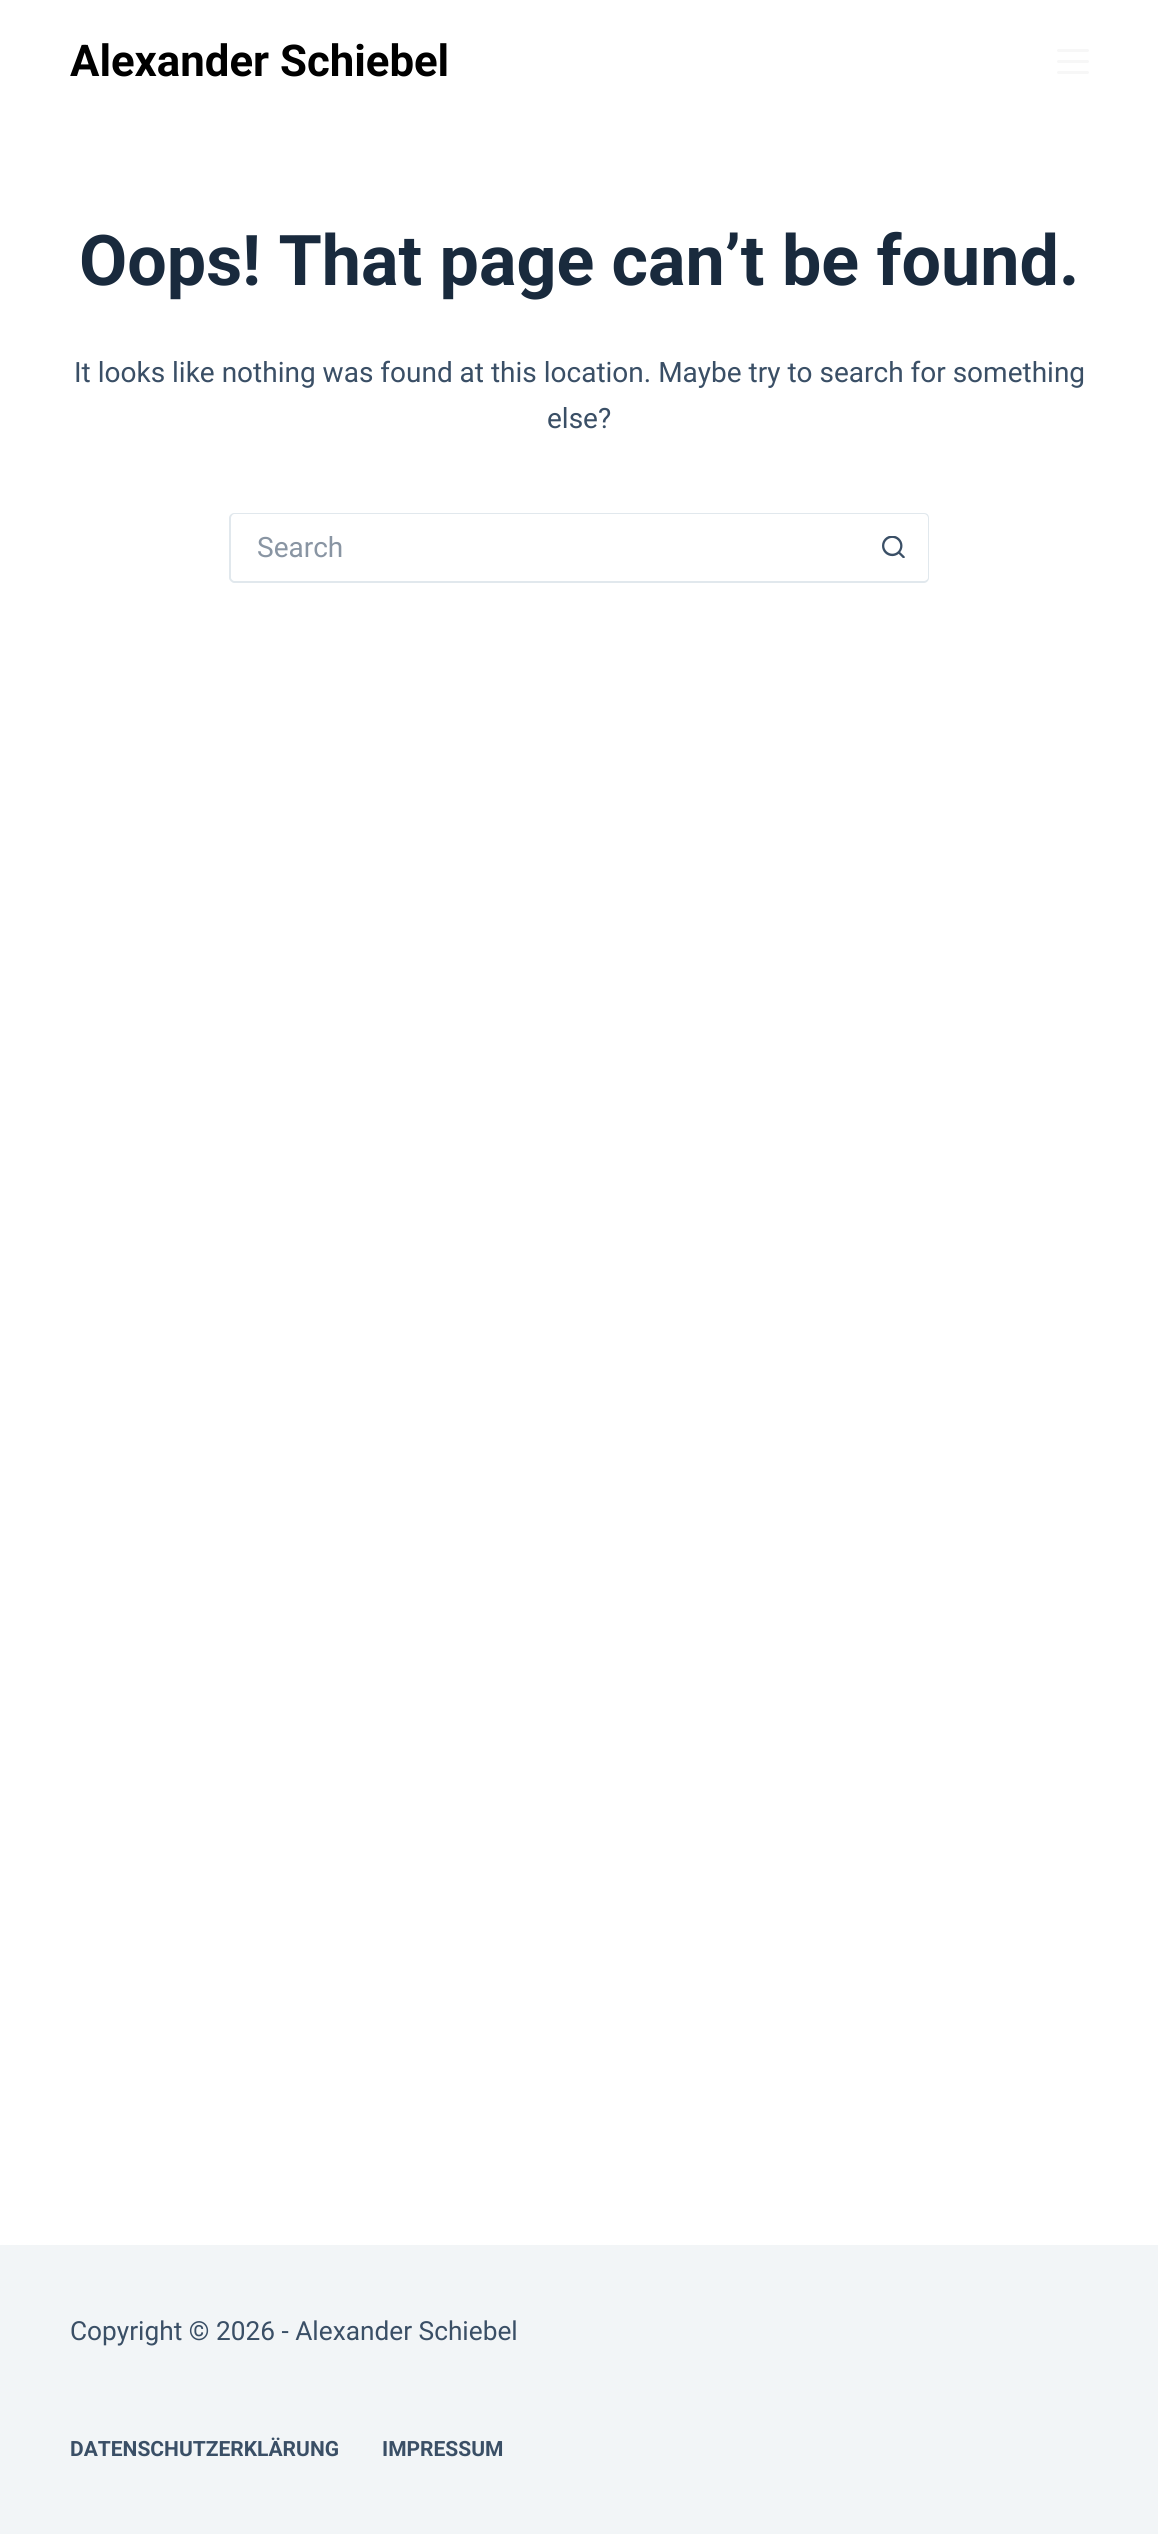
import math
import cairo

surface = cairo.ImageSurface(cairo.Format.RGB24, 1158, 2534)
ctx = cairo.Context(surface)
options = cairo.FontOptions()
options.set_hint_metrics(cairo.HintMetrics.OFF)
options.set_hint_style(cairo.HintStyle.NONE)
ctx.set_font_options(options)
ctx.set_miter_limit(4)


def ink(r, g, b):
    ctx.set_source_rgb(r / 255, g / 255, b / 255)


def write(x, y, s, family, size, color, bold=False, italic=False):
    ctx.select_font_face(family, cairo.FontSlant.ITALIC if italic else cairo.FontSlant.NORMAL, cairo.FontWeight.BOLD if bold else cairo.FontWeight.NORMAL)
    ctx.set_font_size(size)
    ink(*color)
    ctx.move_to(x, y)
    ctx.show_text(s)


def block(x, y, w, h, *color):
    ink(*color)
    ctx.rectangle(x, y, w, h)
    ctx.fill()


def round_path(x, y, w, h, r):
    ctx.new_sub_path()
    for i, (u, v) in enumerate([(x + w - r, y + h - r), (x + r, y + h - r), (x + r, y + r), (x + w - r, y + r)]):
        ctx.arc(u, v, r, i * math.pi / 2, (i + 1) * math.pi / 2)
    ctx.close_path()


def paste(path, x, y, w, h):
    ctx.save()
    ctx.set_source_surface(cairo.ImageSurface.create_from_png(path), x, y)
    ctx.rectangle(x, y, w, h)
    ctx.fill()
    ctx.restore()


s1 = dict(family="Roboto", size=43.75, color=(0, 0, 0), bold=True)
s2 = dict(family="Roboto", size=70, color=(25, 42, 61), bold=True)
s3 = dict(family="Roboto", size=28, color=(58, 79, 102))
s4 = dict(family="Roboto", size=28, color=(137, 149, 163))
s5 = dict(family="Roboto", size=26.25, color=(58, 79, 102))
s6 = dict(family="Roboto", size=21, color=(58, 79, 102), bold=True)

ink(255, 255, 255)
ctx.paint()
write(70, 76, "Alexander Schiebel", **s1)
ink(247, 247, 247)
round_path(1057, 49, 32, 3, 1.5)
ctx.fill()
round_path(1057, 60, 32, 3, 1.5)
ctx.fill()
round_path(1057, 71, 32, 3, 1.5)
ctx.fill()
write(79, 285, "Oops! That page can’t be found.", **s2)
write(74, 382, "It looks like nothing was found at this location. Maybe try to search for something", **s3)
write(547, 428, "else?", **s3)
ink(225, 232, 237)
ctx.set_fill_rule(cairo.FillRule.EVEN_ODD)
ctx.new_path()
ctx.move_to(234, 513)
ctx.line_to(859, 513)
ctx.line_to(859, 583)
ctx.line_to(234, 583)
ctx.curve_to(232, 583, 229, 580, 229, 578)
ctx.line_to(229, 518)
ctx.curve_to(229, 515, 232, 513, 234, 513)
ctx.close_path()
ctx.move_to(234, 514)
ctx.line_to(859, 514)
ctx.line_to(859, 581)
ctx.line_to(234, 581)
ctx.curve_to(233, 581, 231, 579, 231, 578)
ctx.line_to(231, 518)
ctx.curve_to(231, 516, 233, 514, 234, 514)
ctx.close_path()
ctx.fill()
write(257, 557, "Search", **s4)
ink(225, 232, 237)
ctx.new_path()
ctx.move_to(859, 513)
ctx.line_to(924, 513)
ctx.curve_to(927, 513, 929, 515, 929, 518)
ctx.line_to(929, 578)
ctx.curve_to(929, 580, 927, 583, 924, 583)
ctx.line_to(859, 583)
ctx.close_path()
ctx.move_to(859, 514)
ctx.line_to(924, 514)
ctx.curve_to(926, 514, 928, 516, 928, 518)
ctx.line_to(928, 578)
ctx.curve_to(928, 579, 926, 581, 924, 581)
ctx.line_to(859, 581)
ctx.close_path()
ctx.fill()
paste("pic1.png", 882, 536, 23, 22)
block(0, 2245, 1158, 289, 242, 245, 247)
write(70, 2340, "Copyright © 2026 - Alexander Schiebel", **s5)
write(70, 2456, "DATENSCHUTZERKLÄRUNG", **s6)
write(382, 2456, "IMPRESSUM", **s6)
surface.write_to_png("screenshot.png")
